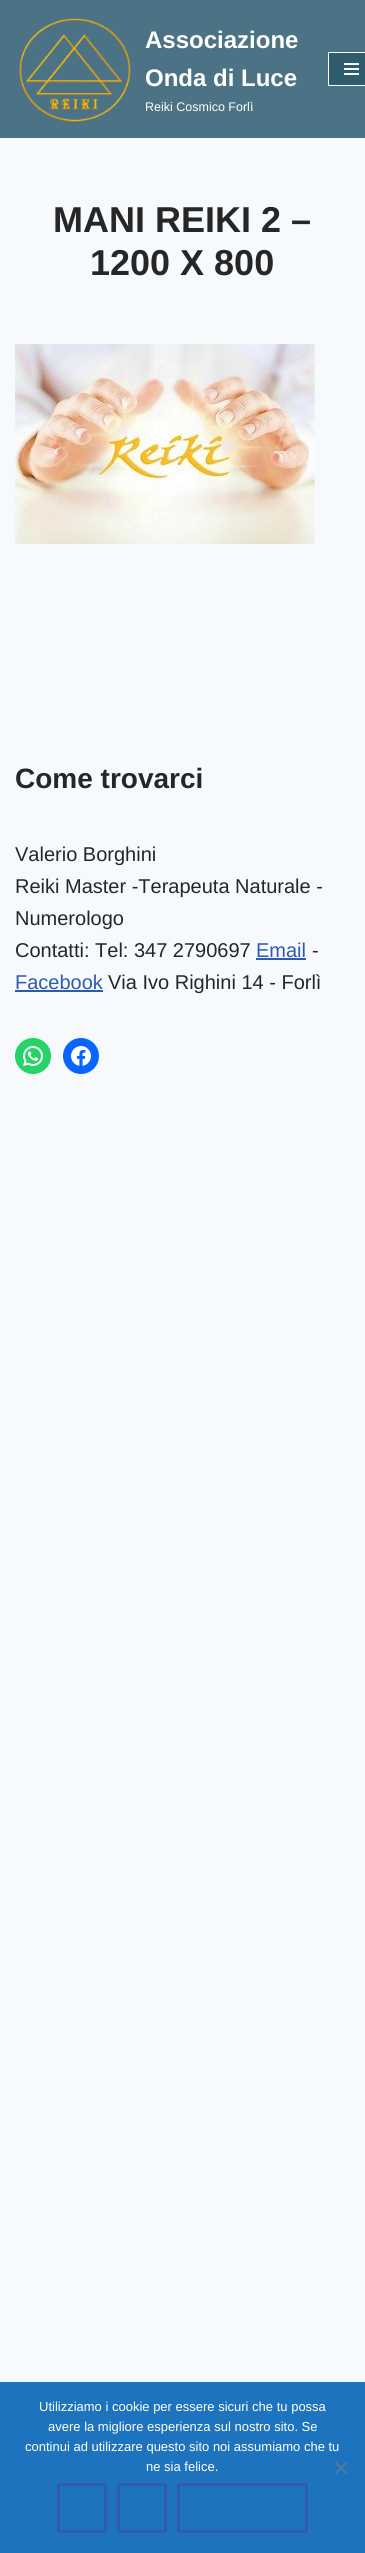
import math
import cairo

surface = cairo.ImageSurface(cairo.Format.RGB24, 365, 2553)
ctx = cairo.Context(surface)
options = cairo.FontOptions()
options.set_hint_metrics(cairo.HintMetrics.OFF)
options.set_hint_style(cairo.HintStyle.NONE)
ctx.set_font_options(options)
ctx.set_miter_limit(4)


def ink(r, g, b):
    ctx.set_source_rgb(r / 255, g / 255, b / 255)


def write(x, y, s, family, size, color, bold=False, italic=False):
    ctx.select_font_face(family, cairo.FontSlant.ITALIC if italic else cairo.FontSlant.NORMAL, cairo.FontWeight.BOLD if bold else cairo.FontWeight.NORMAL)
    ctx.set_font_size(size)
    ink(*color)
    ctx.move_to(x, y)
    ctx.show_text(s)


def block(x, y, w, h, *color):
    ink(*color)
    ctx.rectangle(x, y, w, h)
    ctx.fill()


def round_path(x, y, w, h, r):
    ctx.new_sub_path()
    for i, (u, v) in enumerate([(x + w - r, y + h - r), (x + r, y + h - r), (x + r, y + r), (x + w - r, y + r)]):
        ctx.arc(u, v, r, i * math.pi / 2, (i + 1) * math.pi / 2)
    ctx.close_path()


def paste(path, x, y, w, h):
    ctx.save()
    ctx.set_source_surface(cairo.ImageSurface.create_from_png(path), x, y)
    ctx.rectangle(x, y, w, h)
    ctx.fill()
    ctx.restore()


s1 = dict(family="Liberation Sans", size=24, color=(255, 255, 255), bold=True)
s2 = dict(family="Liberation Sans", size=12.5, color=(255, 255, 255))
s3 = dict(family="Liberation Sans", size=36, color=(39, 38, 38), bold=True)
s4 = dict(family="Liberation Sans", size=28, color=(39, 38, 38), bold=True)
s5 = dict(family="Liberation Sans", size=20, color=(39, 38, 38))
s6 = dict(family="Liberation Sans", size=20, color=(47, 90, 174))
s7 = dict(family="Liberation Sans", size=13, color=(255, 255, 255))

ink(247, 250, 252)
ctx.paint()
block(0, 0, 365, 138, 76, 115, 133)
paste("pic1.png", 19, 18, 112, 104)
write(145, 48, "Associazione", **s1)
write(145, 86, "Onda di Luce", **s1)
write(145, 111, "Reiki Cosmico Forlì", **s2)
ink(47, 92, 113)
ctx.rectangle(328.5, 52.5, 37, 33)
ctx.fill_preserve()
ink(255, 255, 255)
ctx.set_line_width(1)
ctx.stroke()
block(344, 63, 15, 2, 255, 255, 255)
block(344, 68, 15, 2, 255, 255, 255)
block(344, 73, 15, 2, 255, 255, 255)
write(53, 232, "MANI REIKI 2 –", **s3)
write(90, 275, "1200 X 800", **s3)
paste("pic2.png", 15, 344, 300, 200)
write(15, 788, "Come trovarci", **s4)
write(15, 861, "Valerio Borghini", **s5)
write(15, 893, "Reiki Master -Terapeuta Naturale -", **s5)
write(15, 925, "Numerologo", **s5)
write(15, 957, "Contatti: Tel: 347 2790697", **s5)
write(256, 957, "Email", **s6)
block(256, 958, 50, 2, 47, 90, 174)
write(312, 957, "-", **s5)
write(15, 989, "Facebook", **s6)
block(15, 990, 88, 2, 47, 90, 174)
write(108, 989, "Via Ivo Righini 14 - Forlì", **s5)
ink(37, 211, 102)
ctx.new_path()
ctx.arc(33, 1056, 18, 0, 2 * math.pi)
ctx.fill()
paste("pic3.png", 23, 1046, 20, 20)
ink(8, 102, 255)
ctx.arc(81, 1056, 18, 0, 2 * math.pi)
ctx.fill()
paste("pic4.png", 71, 1046, 20, 20)
block(0, 2382, 365, 171, 30, 115, 190)
write(39, 2411, "Utilizziamo i cookie per essere sicuri che tu possa", **s7)
write(48, 2431, "avere la migliore esperienza sul nostro sito. Se", **s7)
write(25, 2451, "continui ad utilizzare questo sito noi assumiamo che tu", **s7)
write(146, 2471, "ne sia felice.", **s7)
ink(79, 122, 159)
ctx.new_path()
ctx.move_to(345.5, 2462)
ctx.line_to(347, 2463.5)
ctx.line_to(336.5, 2474)
ctx.line_to(335, 2472.5)
ctx.close_path()
ctx.fill()
ctx.new_path()
ctx.move_to(335, 2463.5)
ctx.line_to(336.5, 2462)
ctx.line_to(347, 2472.5)
ctx.line_to(345.5, 2474)
ctx.close_path()
ctx.fill()
round_path(58.5, 2484.5, 47, 47, 1.5)
ink(47, 90, 174)
ctx.set_line_width(3)
ctx.stroke()
round_path(118.5, 2484.5, 47, 47, 1.5)
ctx.stroke()
round_path(178.5, 2484.5, 128, 47, 1.5)
ctx.stroke()
surface.write_to_png("screenshot.png")
